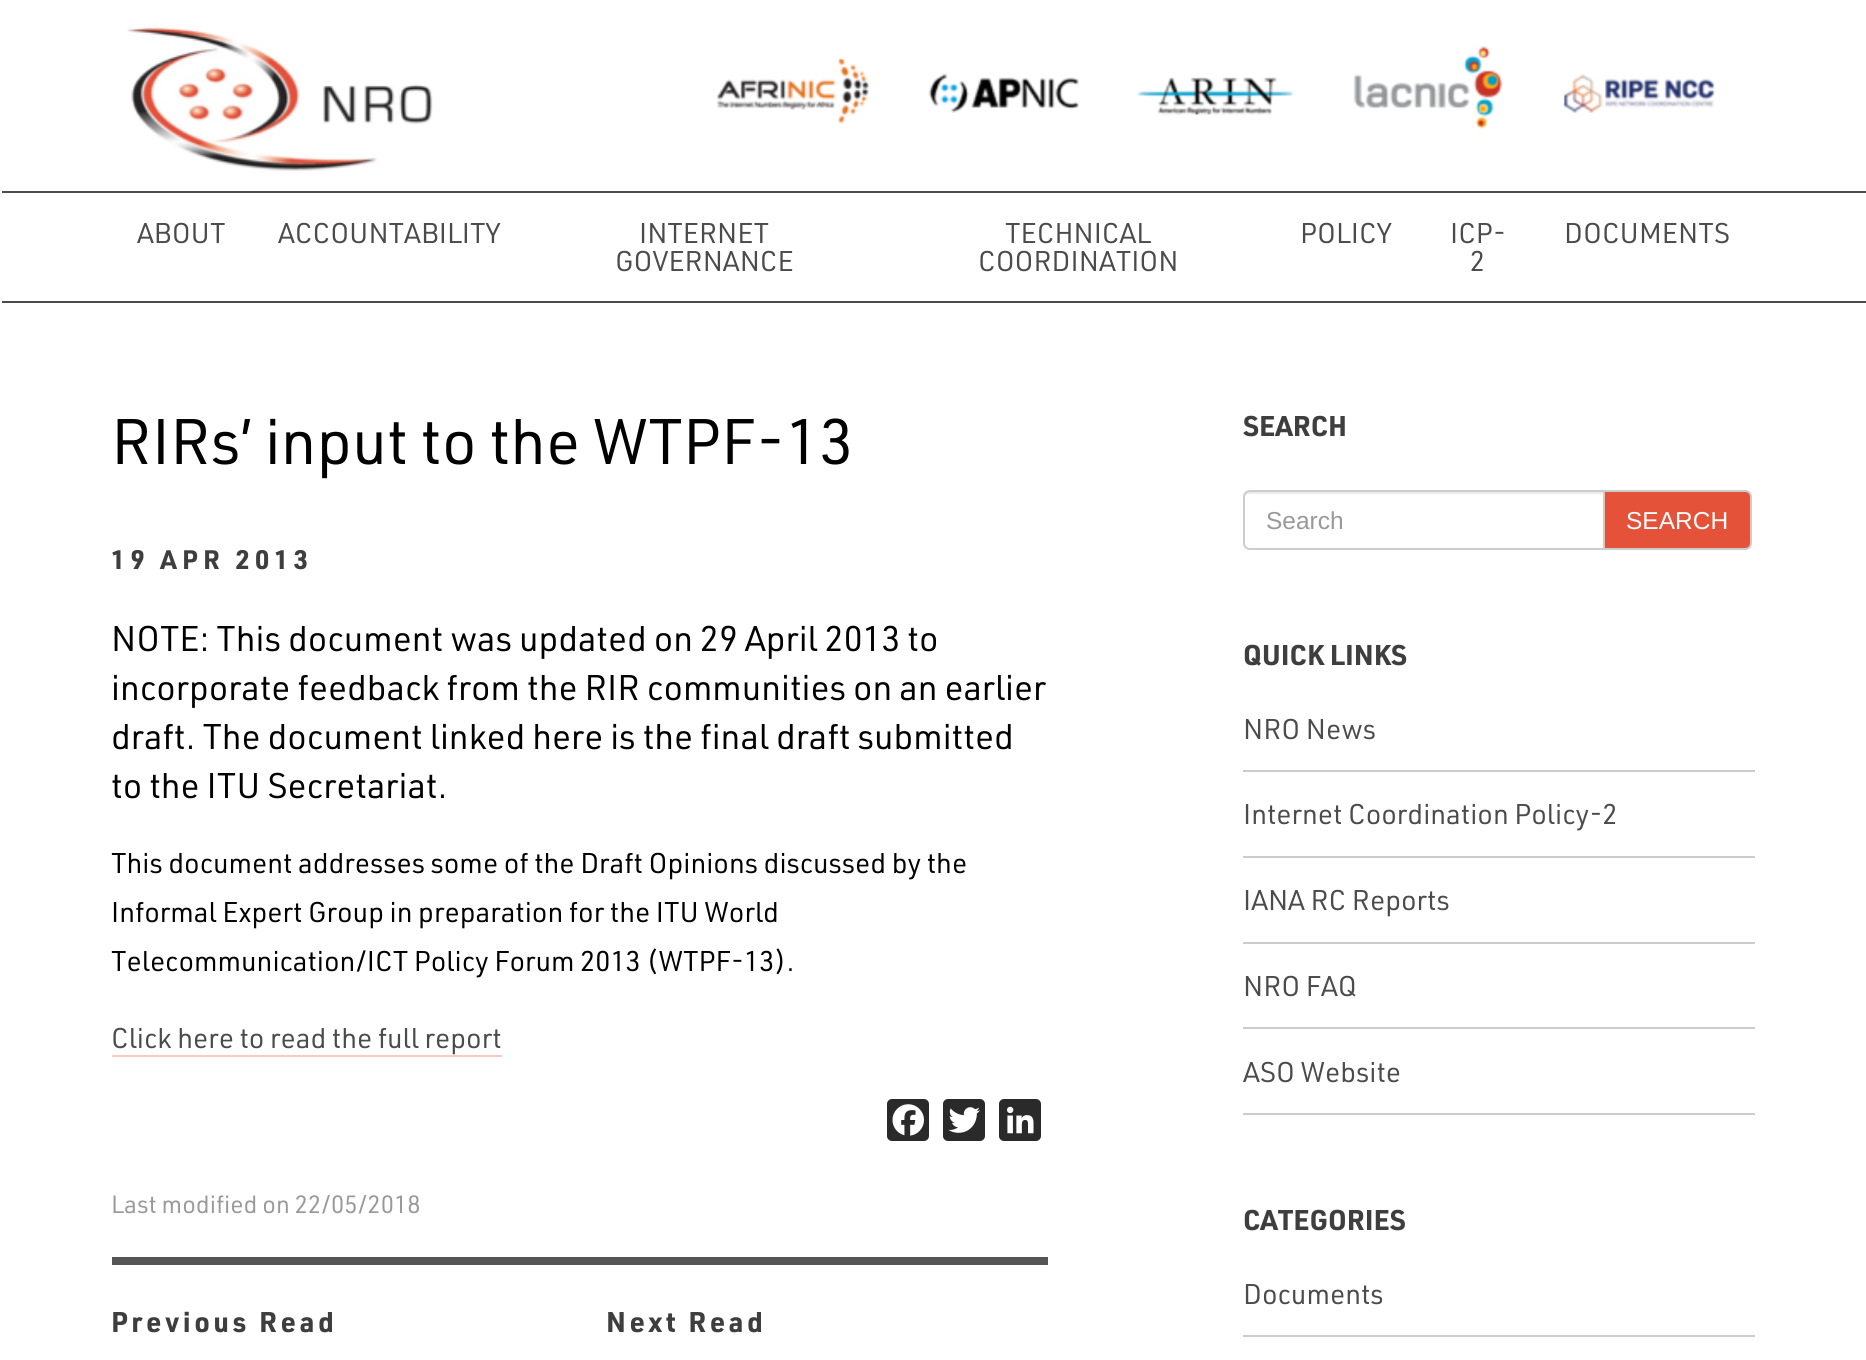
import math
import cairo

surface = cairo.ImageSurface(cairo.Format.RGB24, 1866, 1360)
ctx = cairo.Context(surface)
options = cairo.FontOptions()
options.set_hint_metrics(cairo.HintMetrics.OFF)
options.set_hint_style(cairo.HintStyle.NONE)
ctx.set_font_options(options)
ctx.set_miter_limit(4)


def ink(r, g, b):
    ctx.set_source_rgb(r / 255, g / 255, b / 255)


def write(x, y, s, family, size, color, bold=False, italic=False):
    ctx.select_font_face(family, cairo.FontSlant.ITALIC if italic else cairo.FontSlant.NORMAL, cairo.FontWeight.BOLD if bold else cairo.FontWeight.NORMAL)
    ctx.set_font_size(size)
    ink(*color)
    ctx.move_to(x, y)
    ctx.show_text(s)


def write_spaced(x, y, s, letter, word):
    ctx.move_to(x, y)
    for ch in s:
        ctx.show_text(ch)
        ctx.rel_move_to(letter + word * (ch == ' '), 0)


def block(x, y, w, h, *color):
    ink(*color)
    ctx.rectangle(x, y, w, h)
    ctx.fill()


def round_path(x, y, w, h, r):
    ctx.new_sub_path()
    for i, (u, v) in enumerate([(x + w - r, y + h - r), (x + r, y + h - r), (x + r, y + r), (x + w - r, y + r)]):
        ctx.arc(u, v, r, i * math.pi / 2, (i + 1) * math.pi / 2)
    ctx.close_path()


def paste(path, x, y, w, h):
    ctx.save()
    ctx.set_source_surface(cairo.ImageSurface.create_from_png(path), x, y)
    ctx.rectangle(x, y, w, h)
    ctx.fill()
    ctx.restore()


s1 = dict(family="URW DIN", size=28, color=(75, 75, 75))
s2 = dict(family="URW DIN", size=63, color=(0, 0, 0))
s3 = dict(family="URW DIN", size=35, color=(0, 0, 0))
s4 = dict(family="URW DIN", size=28, color=(0, 0, 0))
s5 = dict(family="URW DIN", size=24.5, color=(153, 153, 153))
s6 = dict(family="URW DIN", size=28, color=(62, 62, 62), bold=True)
s7 = dict(family="Liberation Sans", size=24.5, color=(153, 153, 153))
s8 = dict(family="Liberation Sans", size=24.5, color=(255, 255, 255))

ink(255, 255, 255)
ctx.paint()
paste("pic1.png", 127, 27, 306, 144)
paste("pic2.png", 717, 58, 152, 66)
paste("pic3.png", 928, 73, 151, 40)
paste("pic4.png", 1137, 77, 157, 38)
paste("pic5.png", 1353, 46, 150, 83)
paste("pic6.png", 1563, 74, 152, 39)
block(2, 191, 1864, 2, 75, 75, 75)
block(2, 301, 1864, 2, 75, 75, 75)
write(137, 243, "ABOUT", **s1)
write(278, 243, "ACCOUNTABILITY", **s1)
write(639, 243, "INTERNET", **s1)
write(615, 271, "GOVERNANCE", **s1)
write(1005, 243, "TECHNICAL", **s1)
write(978, 271, "COORDINATION", **s1)
write(1300, 243, "POLICY", **s1)
write(1450, 243, "ICP-", **s1)
write(1470, 271, "2", **s1)
write(1564, 243, "DOCUMENTS", **s1)
write(111, 464, "RIRs’ input to the WTPF-13", **s2)
ctx.select_font_face("URW DIN", cairo.FontSlant.NORMAL, cairo.FontWeight.BOLD)
ctx.set_font_size(26.25)
ink(62, 62, 62)
write_spaced(111, 569, "19 APR 2013", 5.25, 0)
write(111, 651, "NOTE: This document was updated on 29 April 2013 to", **s3)
write(111, 700, "incorporate feedback from the RIR communities on an earlier", **s3)
write(111, 749, "draft. The document linked here is the final draft submitted", **s3)
write(111, 798, "to the ITU Secretariat.", **s3)
write(111, 873, "This document addresses some of the Draft Opinions discussed by the", **s4)
write(111, 922, "Informal Expert Group in preparation for the ITU World", **s4)
write(111, 971, "Telecommunication/ICT Policy Forum 2013 (WTPF-13).", **s4)
write(111, 1048, "Click here to read the full report", **s1)
block(112, 1055, 390, 2, 247, 203, 196)
ink(42, 42, 42)
round_path(887, 1099, 42, 42, 5)
ctx.fill()
paste("pic7.png", 892, 1104, 32, 32)
round_path(943, 1099, 42, 42, 5)
ctx.fill()
paste("pic8.png", 948, 1107, 32, 26)
round_path(999, 1099, 42, 42, 5)
ctx.fill()
paste("pic9.png", 1007, 1106, 27, 28)
write(111, 1213, "Last modified on 22/05/2018", **s5)
block(112, 1257, 936, 8, 85, 85, 85)
ctx.select_font_face("URW DIN", cairo.FontSlant.NORMAL, cairo.FontWeight.BOLD)
ctx.set_font_size(28)
ink(62, 62, 62)
write_spaced(111, 1332, "Previous Read", 3.5, 0)
write_spaced(606, 1332, "Next Read", 3.5, 0)
write(1243, 436, "SEARCH", **s6)
ink(236, 236, 236)
ctx.new_path()
ctx.move_to(1250, 494)
ctx.line_to(1603, 494)
ctx.line_to(1603, 492)
ctx.line_to(1249, 492)
ctx.curve_to(1245, 492, 1244, 496, 1244, 499)
ctx.curve_to(1244, 496, 1247, 494, 1250, 494)
ctx.close_path()
ctx.fill()
ctx.new_path()
ctx.move_to(1250, 491)
ctx.line_to(1604, 491)
ctx.line_to(1604, 549)
ctx.line_to(1250, 549)
ctx.curve_to(1246.5, 549, 1244, 546.5, 1244, 543)
ctx.line_to(1244, 497)
ctx.curve_to(1244, 493.5, 1246.5, 491, 1250, 491)
ctx.close_path()
ink(204, 204, 204)
ctx.stroke()
write(1266, 529, "Search", **s7)
ink(228, 82, 57)
ctx.new_path()
ctx.move_to(1604, 491)
ctx.line_to(1745, 491)
ctx.curve_to(1748.5, 491, 1751, 493.5, 1751, 497)
ctx.line_to(1751, 543)
ctx.curve_to(1751, 546.5, 1748.5, 549, 1745, 549)
ctx.line_to(1604, 549)
ctx.close_path()
ctx.fill_preserve()
ink(204, 204, 204)
ctx.stroke()
write(1626, 529, "SEARCH", **s8)
write(1243, 665, "QUICK LINKS", **s6)
block(1243, 770, 512, 2, 204, 204, 204)
write(1243, 739, "NRO News", **s1)
block(1243, 856, 512, 2, 204, 204, 204)
write(1243, 824, "Internet Coordination Policy-2", **s1)
block(1243, 942, 512, 2, 204, 204, 204)
write(1243, 910, "IANA RC Reports", **s1)
block(1243, 1027, 512, 2, 204, 204, 204)
write(1243, 996, "NRO FAQ", **s1)
block(1243, 1113, 512, 2, 204, 204, 204)
write(1243, 1082, "ASO Website", **s1)
write(1243, 1230, "CATEGORIES", **s6)
block(1243, 1335, 512, 2, 204, 204, 204)
write(1243, 1304, "Documents", **s1)
surface.write_to_png("screenshot.png")
